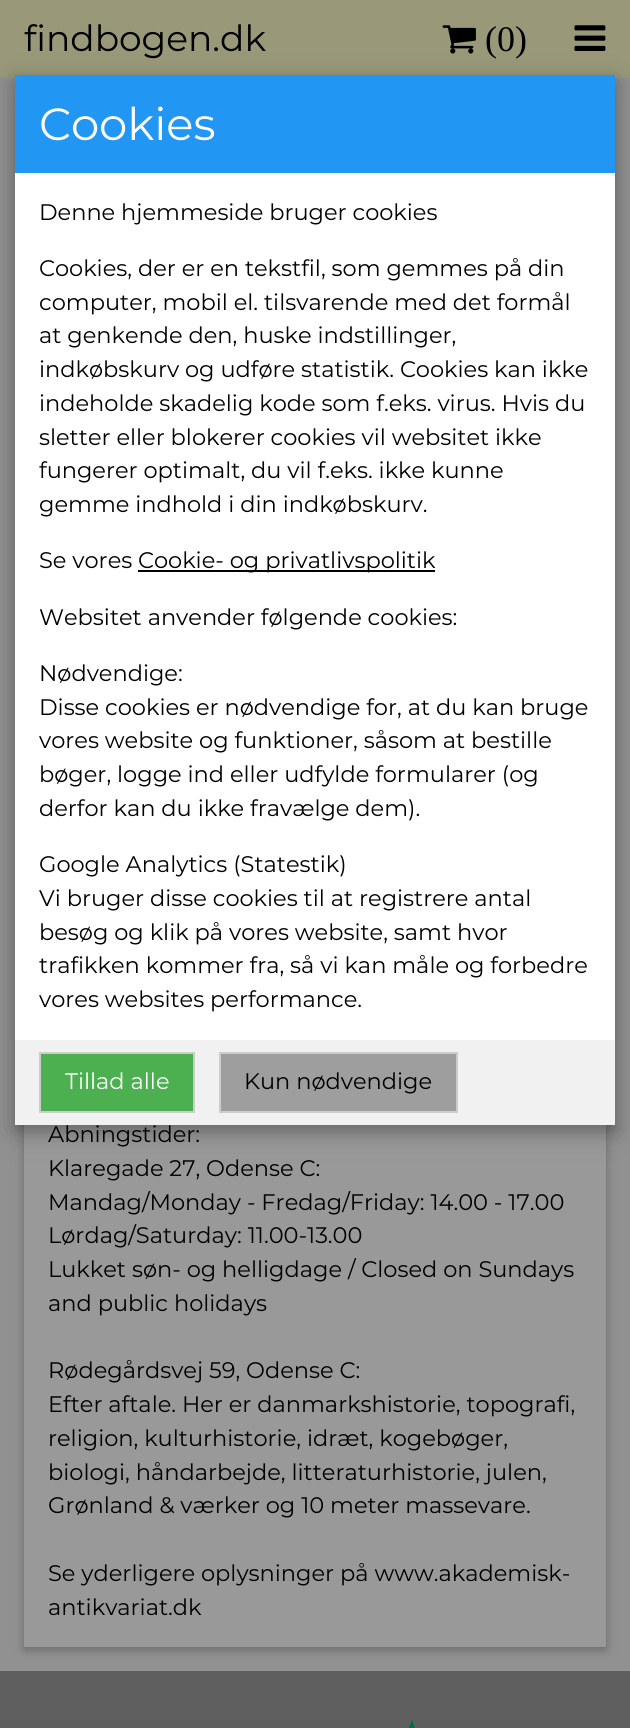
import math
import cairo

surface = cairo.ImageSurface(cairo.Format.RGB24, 630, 1728)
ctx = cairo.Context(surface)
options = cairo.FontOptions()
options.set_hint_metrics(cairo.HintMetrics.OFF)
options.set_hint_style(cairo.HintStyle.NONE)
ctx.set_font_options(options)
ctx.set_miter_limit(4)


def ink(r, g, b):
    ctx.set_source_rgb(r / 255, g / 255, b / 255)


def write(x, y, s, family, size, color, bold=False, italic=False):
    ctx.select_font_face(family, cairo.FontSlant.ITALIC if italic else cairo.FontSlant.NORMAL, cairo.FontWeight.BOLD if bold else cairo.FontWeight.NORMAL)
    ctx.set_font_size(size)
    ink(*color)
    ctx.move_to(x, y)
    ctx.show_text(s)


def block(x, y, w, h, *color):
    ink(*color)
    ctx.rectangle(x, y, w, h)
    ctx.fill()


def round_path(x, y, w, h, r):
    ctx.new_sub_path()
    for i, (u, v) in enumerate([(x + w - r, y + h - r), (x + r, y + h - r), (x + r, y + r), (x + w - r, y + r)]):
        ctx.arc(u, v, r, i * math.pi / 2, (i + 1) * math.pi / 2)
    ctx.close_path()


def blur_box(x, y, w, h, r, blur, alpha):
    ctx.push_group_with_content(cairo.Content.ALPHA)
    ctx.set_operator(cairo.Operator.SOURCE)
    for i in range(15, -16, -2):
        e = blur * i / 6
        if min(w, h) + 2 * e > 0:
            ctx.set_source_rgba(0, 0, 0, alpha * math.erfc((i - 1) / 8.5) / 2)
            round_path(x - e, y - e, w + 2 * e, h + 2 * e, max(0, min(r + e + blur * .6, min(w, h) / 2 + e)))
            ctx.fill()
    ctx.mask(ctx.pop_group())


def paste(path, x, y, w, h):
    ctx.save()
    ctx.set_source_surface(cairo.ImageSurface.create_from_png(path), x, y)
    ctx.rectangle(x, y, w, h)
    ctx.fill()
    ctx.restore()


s1 = dict(family="Montserrat", size=36, color=(0, 0, 0))
s2 = dict(family="Liberation Serif", size=36, color=(0, 0, 0))
s3 = dict(family="Montserrat", size=45, color=(255, 255, 255))
s4 = dict(family="Montserrat", size=22.5, color=(0, 0, 0))
s5 = dict(family="Montserrat", size=22.5, color=(255, 255, 255))

ink(145, 145, 145)
ctx.paint()
block(0, 0, 630, 78, 153, 153, 122)
write(24, 51, "findbogen.dk", **s1)
paste("pic1.png", 442, 25, 34, 29)
write(485, 51, "(0)", **s2)
paste("pic2.png", 574, 25, 32, 26)
ink(0, 0, 0)
blur_box(24, 104, 582, 1546, 0, 7.5, 0.12)
block(0, 1671, 630, 57, 95, 95, 95)
ink(0, 0, 0)
blur_box(24, 104, 582, 1546, 0, 4, 0.16)
block(24, 1125, 582, 522, 153, 153, 153)
ink(0, 0, 0)
blur_box(15, 81, 600, 1050, 0, 15, 0.19)
blur_box(15, 81, 600, 1050, 0, 7.5, 0.2)
block(15, 173, 600, 867, 255, 255, 255)
block(15, 75, 600, 98, 33, 150, 243)
write(39, 140, "Cookies", **s3)
write(39, 220, "Denne hjemmeside bruger cookies", **s4)
write(39, 276, "Cookies, der er en tekstfil, som gemmes på din", **s4)
write(39, 310, "computer, mobil el. tilsvarende med det formål", **s4)
write(39, 343, "at genkende den, huske indstillinger,", **s4)
write(39, 377, "indkøbskurv og udføre statistik. Cookies kan ikke", **s4)
write(39, 411, "indeholde skadelig kode som f.eks. virus. Hvis du", **s4)
write(39, 445, "sletter eller blokerer cookies vil websitet ikke", **s4)
write(39, 478, "fungerer optimalt, du vil f.eks. ikke kunne", **s4)
write(39, 512, "gemme indhold i din indkøbskurv.", **s4)
write(39, 568, "Se vores", **s4)
block(138, 570, 297, 2, 0, 0, 0)
write(138, 568, "Cookie- og privatlivspolitik", **s4)
write(39, 625, "Websitet anvender følgende cookies:", **s4)
write(39, 681, "Nødvendige:", **s4)
write(39, 715, "Disse cookies er nødvendige for, at du kan bruge", **s4)
write(39, 748, "vores website og funktioner, såsom at bestille", **s4)
write(39, 782, "bøger, logge ind eller udfylde formularer (og", **s4)
write(39, 816, "derfor kan du ikke fravælge dem).", **s4)
write(39, 872, "Google Analytics (Statestik)", **s4)
write(39, 906, "Vi bruger disse cookies til at registrere antal", **s4)
write(39, 940, "besøg og klik på vores website, samt hvor", **s4)
write(39, 973, "trafikken kommer fra, så vi kan måle og forbedre", **s4)
write(39, 1007, "vores websites performance.", **s4)
write(48, 1142, "Åbningstider:", **s4)
block(15, 1040, 600, 85, 241, 241, 241)
ink(76, 175, 80)
ctx.rectangle(40, 1053, 154, 59)
ctx.fill_preserve()
ink(204, 204, 204)
ctx.stroke()
write(65, 1089, "Tillad alle", **s5)
ink(158, 158, 158)
ctx.rectangle(220, 1053, 237, 59)
ctx.fill_preserve()
ink(204, 204, 204)
ctx.stroke()
write(244, 1089, "Kun nødvendige", **s4)
paste("pic3.png", 409, 1719, 6, 9)
write(48, 1176, "Klaregade 27, Odense C:", **s4)
write(48, 1210, "Mandag/Monday - Fredag/Friday: 14.00 - 17.00", **s4)
write(48, 1243, "Lørdag/Saturday: 11.00-13.00", **s4)
write(48, 1277, "Lukket søn- og helligdage / Closed on Sundays", **s4)
write(48, 1311, "and public holidays", **s4)
write(48, 1378, "Rødegårdsvej 59, Odense C:", **s4)
write(48, 1412, "Efter aftale. Her er danmarkshistorie, topografi,", **s4)
write(48, 1446, "religion, kulturhistorie, idræt, kogebøger,", **s4)
write(48, 1480, "biologi, håndarbejde, litteraturhistorie, julen,", **s4)
write(48, 1513, "Grønland & værker og 10 meter massevare.", **s4)
write(48, 1581, "Se yderligere oplysninger på www.akademisk-", **s4)
write(48, 1615, "antikvariat.dk", **s4)
surface.write_to_png("screenshot.png")
